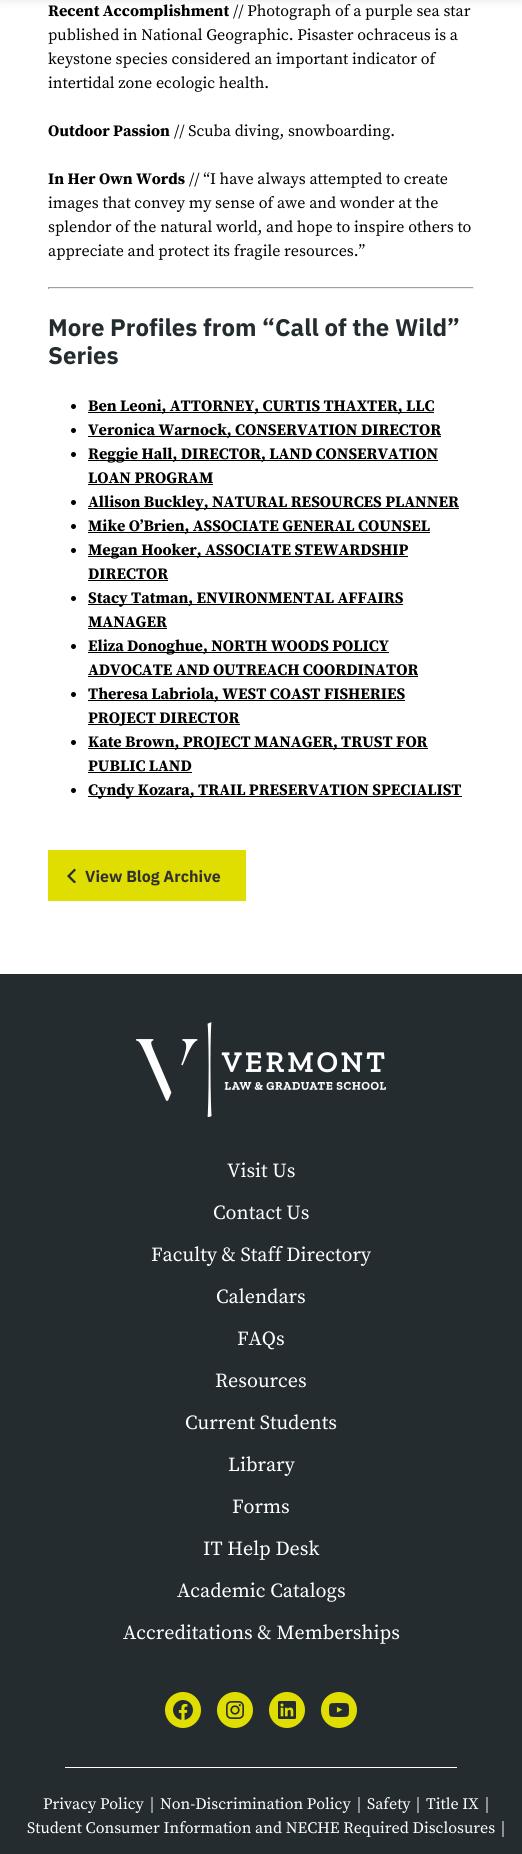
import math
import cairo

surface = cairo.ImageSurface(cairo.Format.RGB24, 522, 1854)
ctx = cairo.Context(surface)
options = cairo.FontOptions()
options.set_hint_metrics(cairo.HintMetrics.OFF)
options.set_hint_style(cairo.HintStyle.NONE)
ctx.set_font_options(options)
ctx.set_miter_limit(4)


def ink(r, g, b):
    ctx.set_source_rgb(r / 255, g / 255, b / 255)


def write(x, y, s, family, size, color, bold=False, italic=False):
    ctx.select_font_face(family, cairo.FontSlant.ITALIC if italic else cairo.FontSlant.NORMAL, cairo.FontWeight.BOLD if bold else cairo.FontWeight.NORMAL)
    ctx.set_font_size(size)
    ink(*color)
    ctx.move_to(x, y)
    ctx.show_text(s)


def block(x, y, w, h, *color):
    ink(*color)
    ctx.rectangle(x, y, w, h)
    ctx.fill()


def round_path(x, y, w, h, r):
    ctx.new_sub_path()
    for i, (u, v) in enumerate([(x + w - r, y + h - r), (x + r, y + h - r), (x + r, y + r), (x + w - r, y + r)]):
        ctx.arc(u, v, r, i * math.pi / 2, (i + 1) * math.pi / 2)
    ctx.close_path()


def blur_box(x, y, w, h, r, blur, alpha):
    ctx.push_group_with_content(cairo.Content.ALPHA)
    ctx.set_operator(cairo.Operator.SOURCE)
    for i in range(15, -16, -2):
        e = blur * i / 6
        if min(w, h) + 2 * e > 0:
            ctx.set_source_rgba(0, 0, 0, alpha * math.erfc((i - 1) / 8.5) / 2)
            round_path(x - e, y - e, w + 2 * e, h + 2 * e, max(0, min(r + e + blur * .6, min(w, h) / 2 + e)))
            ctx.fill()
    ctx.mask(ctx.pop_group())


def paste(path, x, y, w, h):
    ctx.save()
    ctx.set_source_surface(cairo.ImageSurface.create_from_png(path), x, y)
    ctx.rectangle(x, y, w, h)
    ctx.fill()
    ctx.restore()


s1 = dict(family="Source Serif Pro", size=16, color=(0, 0, 0), bold=True)
s2 = dict(family="Source Serif Pro", size=16, color=(0, 0, 0))
s3 = dict(family="IBM Plex Sans", size=24, color=(36, 44, 48), bold=True)
s4 = dict(family="IBM Plex Sans", size=16, color=(49, 49, 49), bold=True)
s5 = dict(family="Source Serif Pro", size=20, color=(255, 255, 255))
s6 = dict(family="Source Serif Pro", size=16, color=(255, 255, 255))

ink(255, 255, 255)
ctx.paint()
ink(0, 0, 0)
blur_box(0, -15, 522, 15, 0, 5, 0.1)
write(48, 16, "Recent Accomplishment", **s1)
write(233, 16, "// Photograph of a purple sea star", **s2)
write(48, 40, "published in National Geographic. Pisaster ochraceus is a", **s2)
write(48, 64, "keystone species considered an important indicator of", **s2)
write(48, 88, "intertidal zone ecologic health.", **s2)
write(48, 136, "Outdoor Passion", **s1)
write(174, 136, "// Scuba diving, snowboarding.", **s2)
write(48, 184, "In Her Own Words", **s1)
write(189, 184, "// “I have always attempted to create", **s2)
write(48, 208, "images that convey my sense of awe and wonder at the", **s2)
write(48, 232, "splendor of the natural world, and hope to inspire others to", **s2)
write(48, 256, "appreciate and protect its fragile resources.”", **s2)
block(48, 287, 426, 1, 159, 159, 159)
block(473, 287, 1, 2, 238, 238, 238)
block(48, 288, 426, 1, 238, 238, 238)
block(48, 287, 1, 2, 159, 159, 159)
write(48, 336, "More Profiles from “Call of the Wild”", **s3)
write(48, 364, "Series", **s3)
ink(0, 0, 0)
ctx.new_path()
ctx.arc(73.5, 406.5, 2.5, 0, 2 * math.pi)
ctx.fill()
block(88, 412, 346, 1, 0, 0, 0)
write(88, 411, "Ben Leoni, ATTORNEY, CURTIS THAXTER, LLC", **s1)
ctx.new_path()
ctx.arc(73.5, 430.5, 2.5, 0, 2 * math.pi)
ctx.fill()
block(88, 436, 353, 1, 0, 0, 0)
write(88, 435, "Veronica Warnock, CONSERVATION DIRECTOR", **s1)
ctx.new_path()
ctx.arc(73.5, 454.5, 2.5, 0, 2 * math.pi)
ctx.fill()
block(88, 460, 350, 1, 0, 0, 0)
write(88, 459, "Reggie Hall, DIRECTOR, LAND CONSERVATION", **s1)
write(88, 483, "LOAN PROGRAM", **s1)
block(88, 484, 125, 1, 0, 0, 0)
ctx.new_path()
ctx.arc(73.5, 502.5, 2.5, 0, 2 * math.pi)
ctx.fill()
block(88, 508, 371, 1, 0, 0, 0)
write(88, 507, "Allison Buckley, NATURAL RESOURCES PLANNER", **s1)
ctx.new_path()
ctx.arc(73.5, 526.5, 2.5, 0, 2 * math.pi)
ctx.fill()
block(88, 532, 342, 1, 0, 0, 0)
write(88, 531, "Mike O’Brien, ASSOCIATE GENERAL COUNSEL", **s1)
ctx.new_path()
ctx.arc(73.5, 550.5, 2.5, 0, 2 * math.pi)
ctx.fill()
block(88, 556, 320, 1, 0, 0, 0)
write(88, 555, "Megan Hooker, ASSOCIATE STEWARDSHIP", **s1)
write(88, 579, "DIRECTOR", **s1)
block(88, 580, 80, 1, 0, 0, 0)
ctx.new_path()
ctx.arc(73.5, 598.5, 2.5, 0, 2 * math.pi)
ctx.fill()
block(88, 604, 315, 1, 0, 0, 0)
write(88, 603, "Stacy Tatman, ENVIRONMENTAL AFFAIRS", **s1)
write(88, 627, "MANAGER", **s1)
block(88, 628, 79, 1, 0, 0, 0)
ctx.new_path()
ctx.arc(73.5, 646.5, 2.5, 0, 2 * math.pi)
ctx.fill()
block(88, 652, 301, 1, 0, 0, 0)
write(88, 651, "Eliza Donoghue, NORTH WOODS POLICY", **s1)
write(88, 675, "ADVOCATE AND OUTREACH COORDINATOR", **s1)
block(88, 676, 330, 1, 0, 0, 0)
ctx.new_path()
ctx.arc(73.5, 694.5, 2.5, 0, 2 * math.pi)
ctx.fill()
block(88, 700, 317, 1, 0, 0, 0)
write(88, 699, "Theresa Labriola, WEST COAST FISHERIES", **s1)
block(88, 724, 152, 1, 0, 0, 0)
write(88, 723, "PROJECT DIRECTOR", **s1)
ctx.new_path()
ctx.arc(73.5, 742.5, 2.5, 0, 2 * math.pi)
ctx.fill()
block(88, 748, 340, 1, 0, 0, 0)
write(88, 747, "Kate Brown, PROJECT MANAGER, TRUST FOR", **s1)
write(88, 771, "PUBLIC LAND", **s1)
block(88, 772, 104, 1, 0, 0, 0)
ctx.new_path()
ctx.arc(73.5, 790.5, 2.5, 0, 2 * math.pi)
ctx.fill()
block(88, 796, 374, 1, 0, 0, 0)
write(88, 795, "Cyndy Kozara, TRAIL PRESERVATION SPECIALIST", **s1)
block(48, 850, 198, 51, 224, 222, 0)
paste("pic1.png", 67, 868, 9, 15)
write(85, 882, "View Blog Archive", **s4)
block(0, 974, 522, 880, 36, 44, 48)
paste("pic2.png", 136, 1022, 250, 95)
write(227, 1177, "Visit Us", **s5)
write(213, 1219, "Contact Us", **s5)
write(151, 1261, "Faculty & Staff Directory", **s5)
write(216, 1303, "Calendars", **s5)
write(237, 1345, "FAQs", **s5)
write(215, 1387, "Resources", **s5)
write(185, 1429, "Current Students", **s5)
write(228, 1471, "Library", **s5)
write(232, 1513, "Forms", **s5)
write(203, 1555, "IT Help Desk", **s5)
write(177, 1597, "Academic Catalogs", **s5)
write(123, 1639, "Accreditations & Memberships", **s5)
ink(224, 222, 0)
ctx.new_path()
ctx.arc(183, 1710, 18, 0, 2 * math.pi)
ctx.fill()
paste("pic3.png", 173, 1700, 20, 20)
ctx.arc(235, 1710, 18, 0, 2 * math.pi)
ctx.fill()
paste("pic4.png", 226, 1701, 18, 18)
ctx.arc(287, 1710, 18, 0, 2 * math.pi)
ctx.fill()
paste("pic5.png", 278, 1701, 18, 18)
ctx.arc(339, 1710, 18, 0, 2 * math.pi)
ctx.fill()
paste("pic6.png", 329, 1703, 20, 14)
block(65, 1767, 392, 1, 255, 255, 255)
write(43, 1809, "Privacy Policy", **s6)
write(150, 1809, "|", **s6)
write(160, 1809, "Non-Discrimination Policy", **s6)
write(357, 1809, "|", **s6)
write(367, 1809, "Safety", **s6)
write(416, 1809, "|", **s6)
write(426, 1809, "Title IX", **s6)
write(485, 1809, "|", **s6)
write(27, 1833, "Student Consumer Information and NECHE Required Disclosures", **s6)
write(501, 1833, "|", **s6)
surface.write_to_png("screenshot.png")
